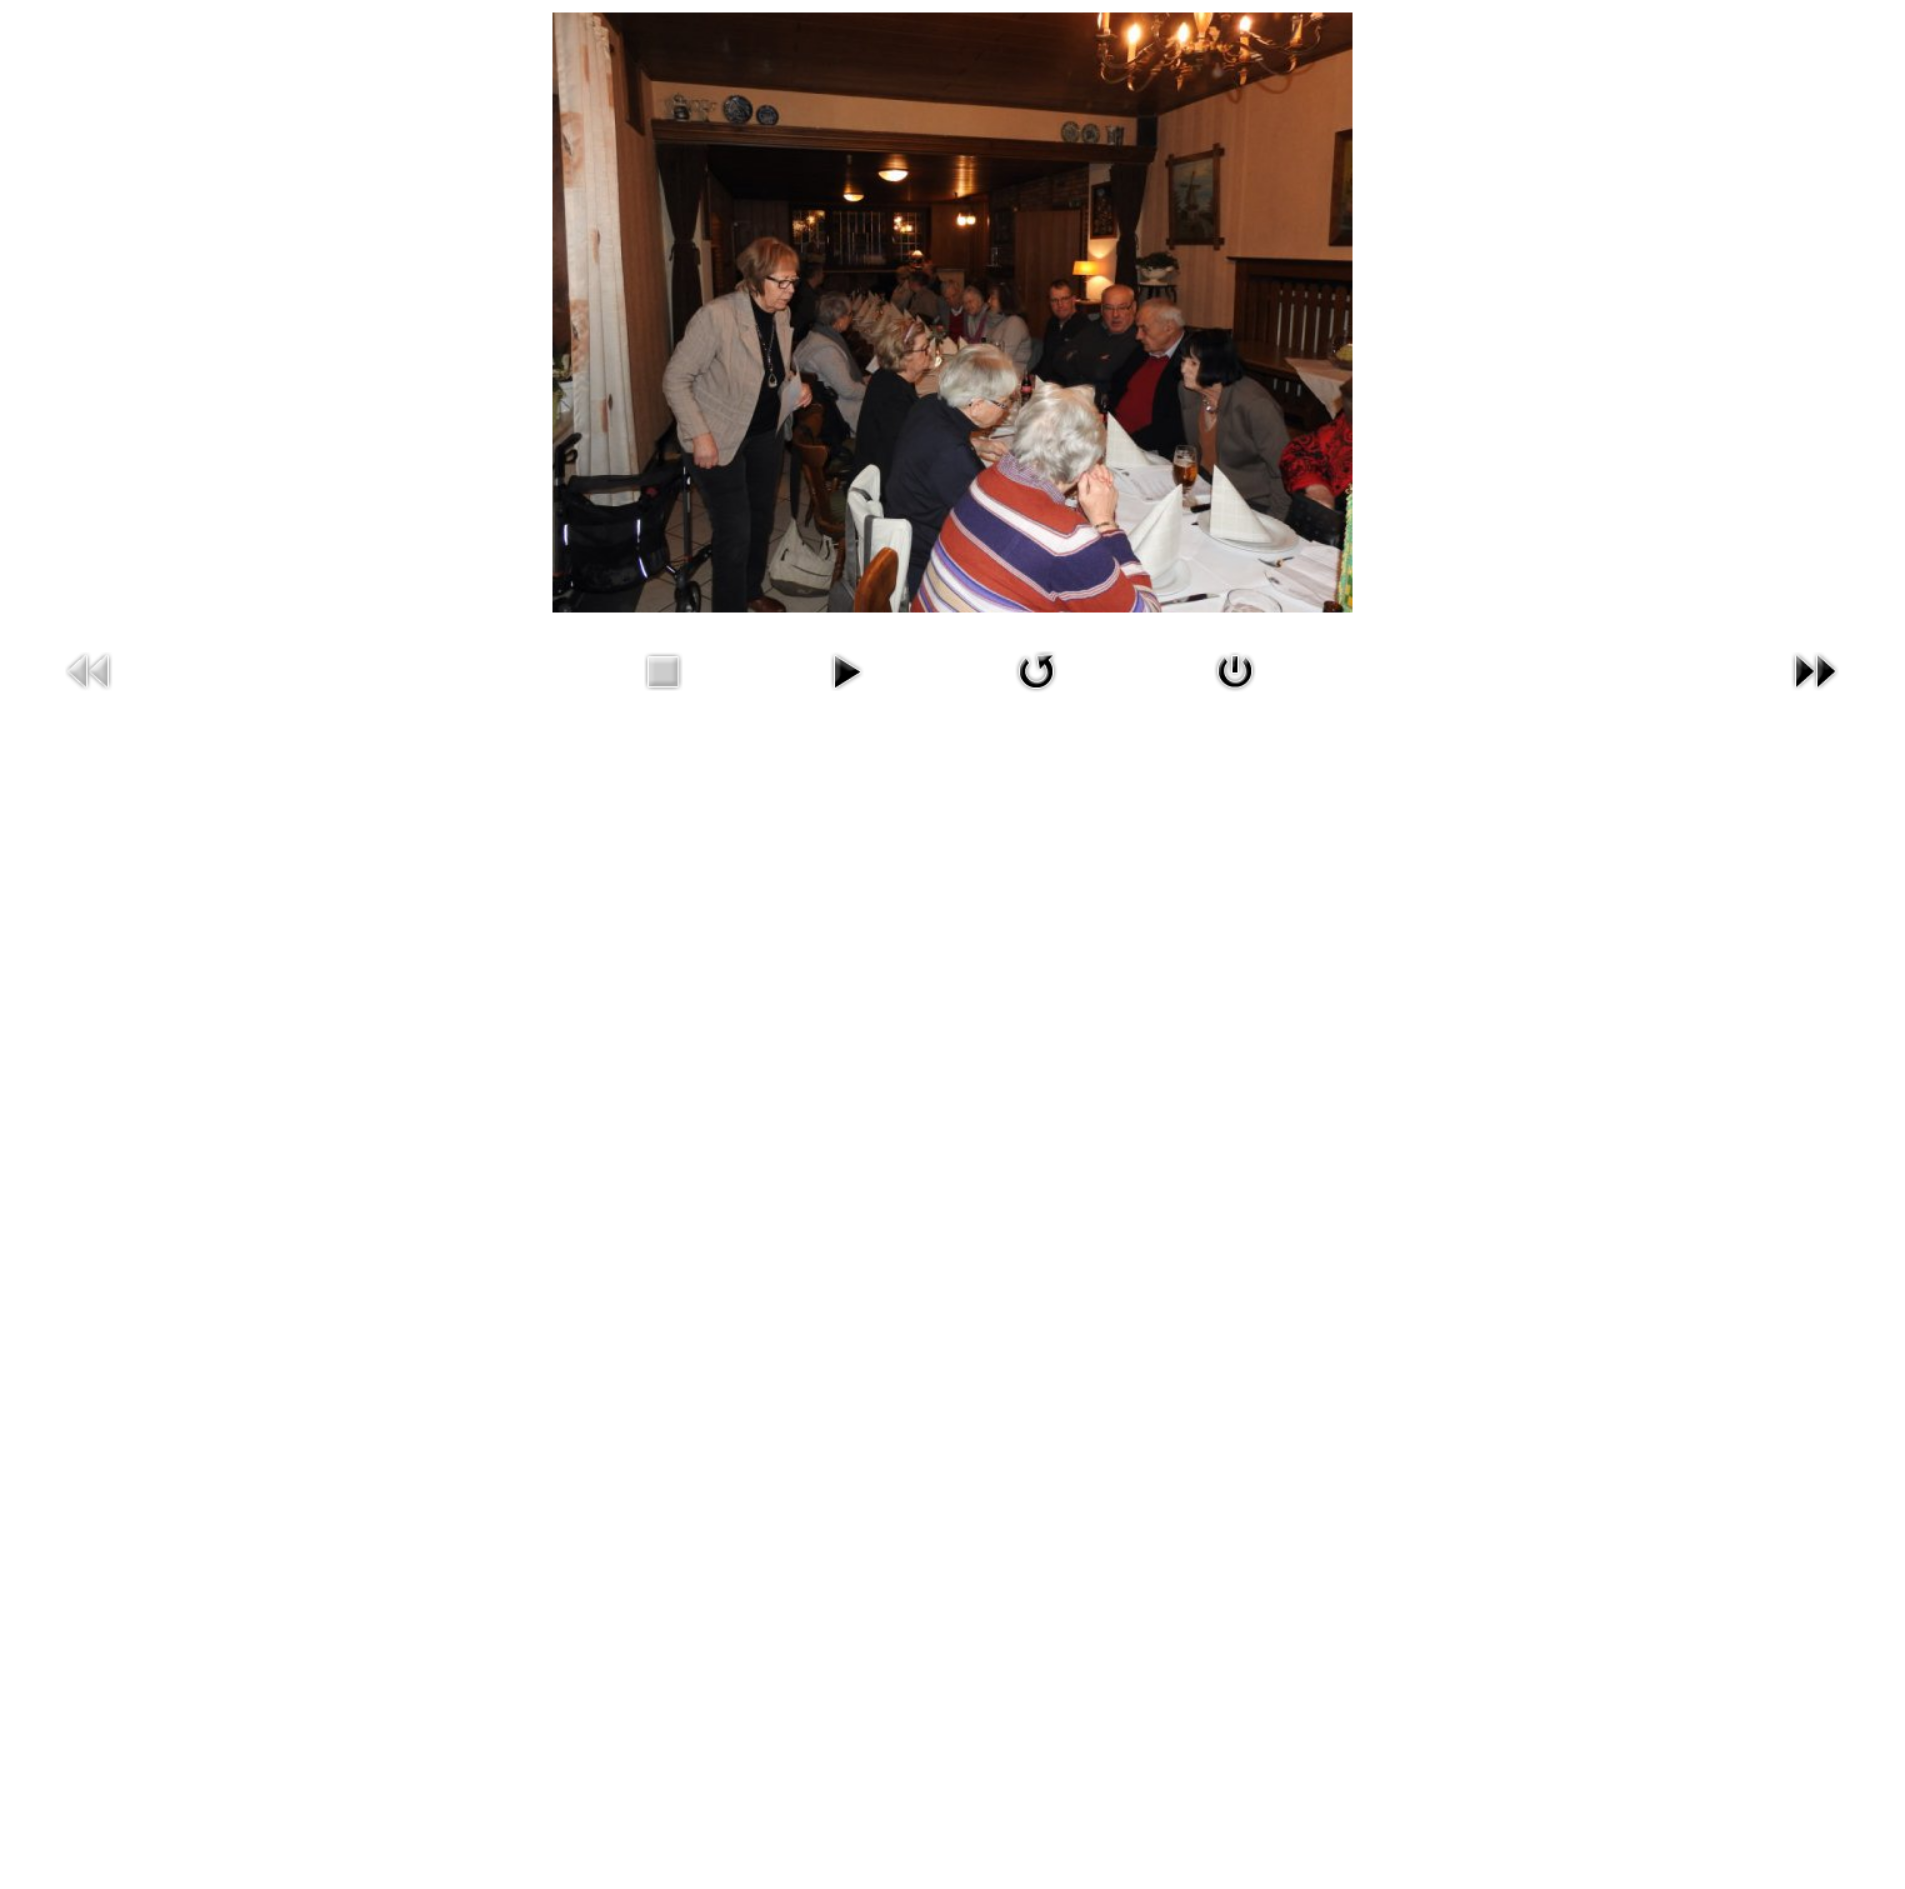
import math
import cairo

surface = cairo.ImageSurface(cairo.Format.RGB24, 1905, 1889)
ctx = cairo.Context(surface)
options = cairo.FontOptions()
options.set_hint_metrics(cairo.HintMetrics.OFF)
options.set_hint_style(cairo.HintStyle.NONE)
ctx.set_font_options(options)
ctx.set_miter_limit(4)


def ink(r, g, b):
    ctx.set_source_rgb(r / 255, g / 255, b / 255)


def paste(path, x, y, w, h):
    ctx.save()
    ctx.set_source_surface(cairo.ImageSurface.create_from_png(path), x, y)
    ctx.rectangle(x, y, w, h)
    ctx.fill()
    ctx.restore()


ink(255, 255, 255)
ctx.paint()
paste("pic1.png", 552, 12, 801, 601)
paste("pic2.png", 65, 652, 48, 39)
paste("pic3.png", 644, 652, 39, 39)
paste("pic4.png", 830, 652, 34, 39)
paste("pic5.png", 1015, 651, 43, 42)
paste("pic6.png", 1214, 652, 42, 40)
paste("pic7.png", 1791, 652, 48, 39)
surface.write_to_png("screenshot.png")
